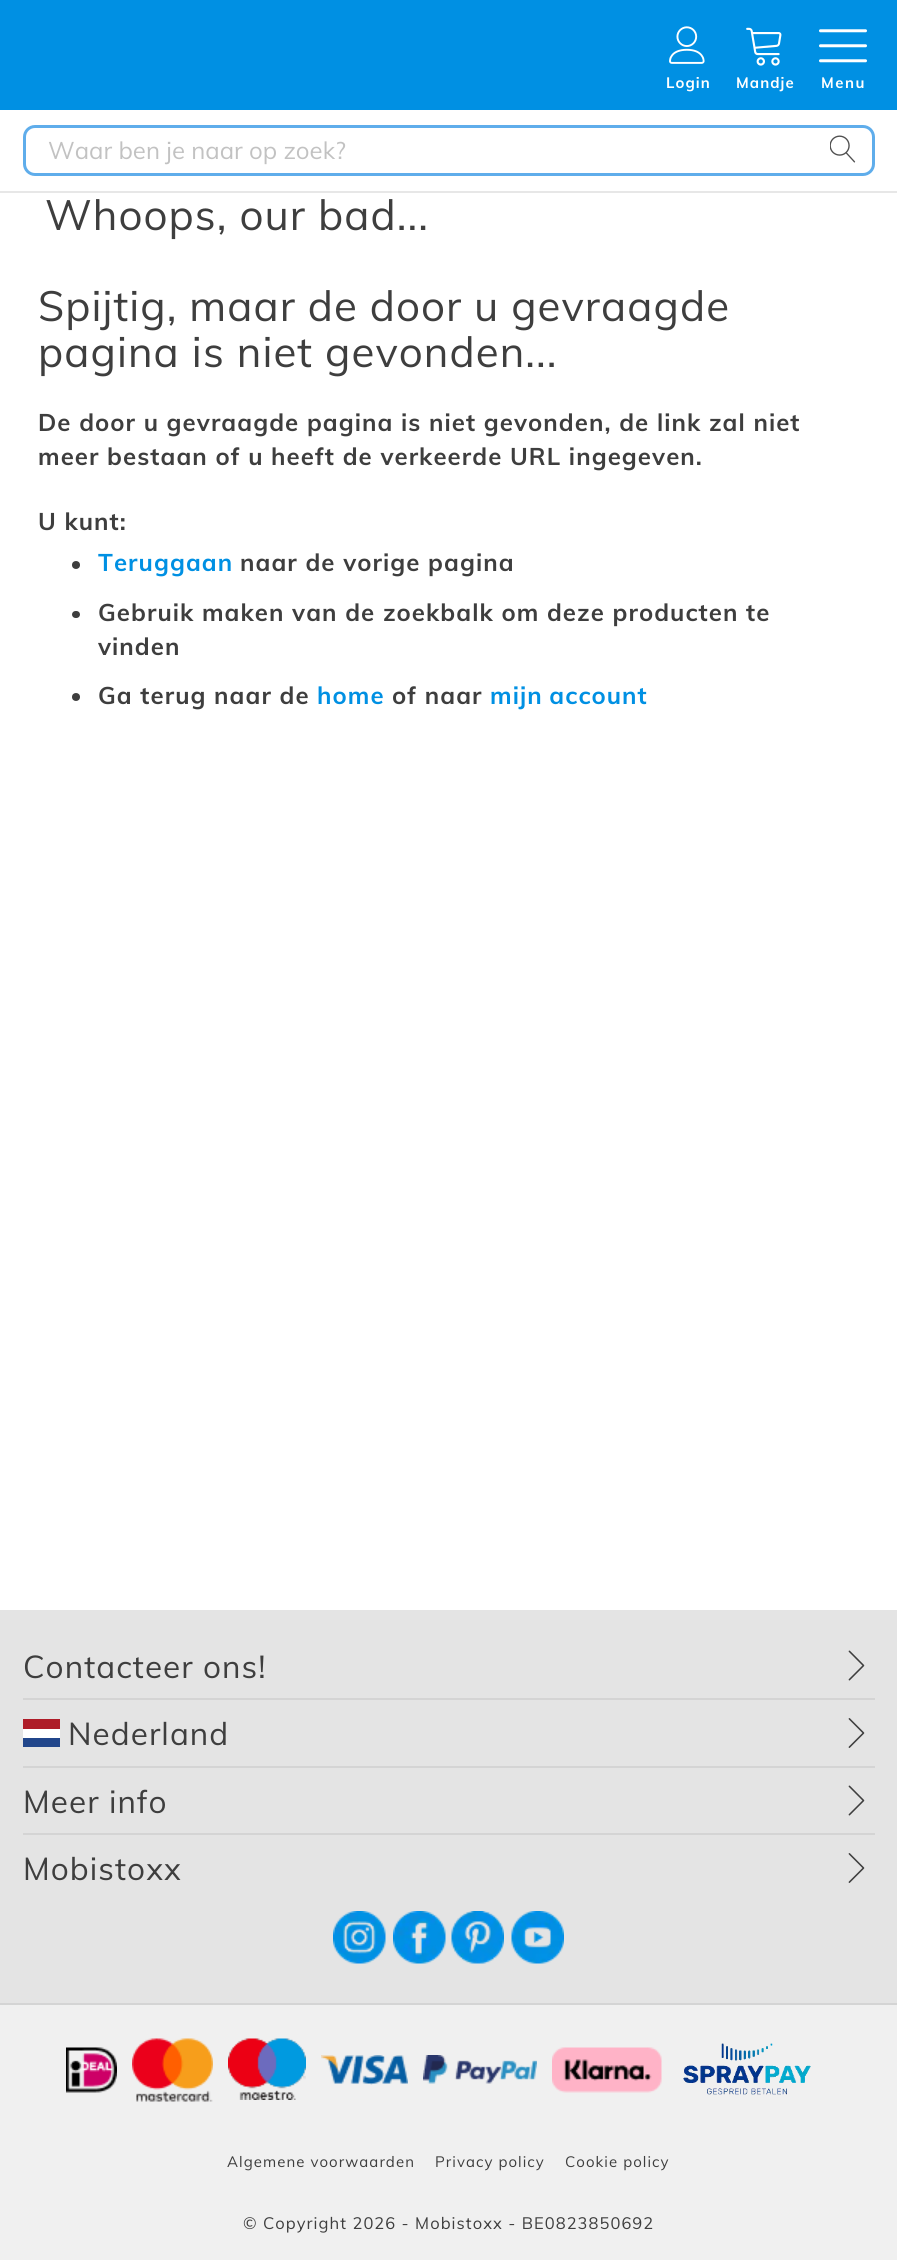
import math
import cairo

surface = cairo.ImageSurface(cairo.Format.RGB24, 897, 2260)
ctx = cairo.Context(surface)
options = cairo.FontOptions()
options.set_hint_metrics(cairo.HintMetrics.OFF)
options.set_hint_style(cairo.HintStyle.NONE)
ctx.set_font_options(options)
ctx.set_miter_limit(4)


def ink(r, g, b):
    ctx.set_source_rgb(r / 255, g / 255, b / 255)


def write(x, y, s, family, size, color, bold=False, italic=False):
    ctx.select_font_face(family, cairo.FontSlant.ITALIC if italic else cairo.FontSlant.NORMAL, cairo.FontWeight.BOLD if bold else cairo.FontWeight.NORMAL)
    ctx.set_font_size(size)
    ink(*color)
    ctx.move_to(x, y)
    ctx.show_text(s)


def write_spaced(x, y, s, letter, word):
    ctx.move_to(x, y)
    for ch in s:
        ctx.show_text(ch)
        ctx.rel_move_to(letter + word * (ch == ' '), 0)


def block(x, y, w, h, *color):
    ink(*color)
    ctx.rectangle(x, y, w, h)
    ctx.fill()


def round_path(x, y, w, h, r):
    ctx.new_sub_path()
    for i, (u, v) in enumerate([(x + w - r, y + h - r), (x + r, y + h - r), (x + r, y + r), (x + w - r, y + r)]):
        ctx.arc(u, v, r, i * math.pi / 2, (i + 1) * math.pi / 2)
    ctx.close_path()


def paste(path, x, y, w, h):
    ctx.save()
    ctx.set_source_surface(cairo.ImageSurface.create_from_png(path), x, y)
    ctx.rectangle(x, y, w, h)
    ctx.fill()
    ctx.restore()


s1 = dict(family="Muli", size=24, color=(194, 194, 194))

ink(255, 255, 255)
ctx.paint()
block(0, 0, 897, 110, 0, 144, 227)
paste("pic1.png", 669, 26, 36, 38)
ctx.select_font_face("Muli", cairo.FontSlant.NORMAL, cairo.FontWeight.BOLD)
ctx.set_font_size(15)
ink(255, 255, 255)
write_spaced(666, 88, "Login", 1.05, 0)
paste("pic2.png", 746, 27, 36, 39)
write_spaced(736, 88, "Mandje", 1.05, 0)
paste("pic3.png", 819, 29, 48, 34)
write_spaced(821, 88, "Menu", 1.5, 0)
block(0, 191, 897, 2, 231, 231, 231)
round_path(24.5, 126.5, 849, 48, 10.5)
ink(95, 173, 235)
ctx.set_line_width(3)
ctx.stroke()
write(48, 159, "Waar ben je naar op zoek?", **s1)
paste("pic4.png", 830, 135, 26, 28)
ctx.set_font_size(42)
ink(62, 62, 62)
write_spaced(45, 230, "Whoops, our bad...", 1.05, 0)
write_spaced(38, 321, "Spijtig, maar de door u gevraagde", 1.05, -0.25)
write_spaced(38, 367, "pagina is niet gevonden...", 1.05, 0)
ctx.select_font_face("Muli", cairo.FontSlant.NORMAL, cairo.FontWeight.BOLD)
ctx.set_font_size(24)
write_spaced(38, 431, "De door u gevraagde pagina is niet gevonden, de link zal niet", 1.05, 0)
write_spaced(38, 465, "meer bestaan of u heeft de verkeerde URL ingegeven.", 1.05, 0)
write_spaced(38, 530, "U kunt:", 1.05, 0)
ctx.new_path()
ctx.arc(76, 565, 4, 0, 2 * math.pi)
ctx.fill()
ink(0, 144, 227)
write_spaced(98, 571, "Teruggaan", 1.05, 0)
ink(62, 62, 62)
write_spaced(240, 571, "naar de vorige pagina", 1.05, 0)
round_path(72, 611, 8, 7, 3.5)
ctx.fill()
write_spaced(98, 621, "Gebruik maken van de zoekbalk om deze producten te", 1.05, 0)
write_spaced(98, 655, "vinden", 1.05, 0)
ctx.new_path()
ctx.arc(76, 697, 4, 0, 2 * math.pi)
ctx.fill()
write_spaced(98, 704, "Ga terug naar de", 1.05, 0)
ink(0, 144, 227)
write_spaced(317, 704, "home", 1.05, 0)
ink(62, 62, 62)
write_spaced(392, 704, "of naar", 1.05, 0)
ink(0, 144, 227)
write_spaced(490, 704, "mijn account", 1.05, -1)
block(0, 1610, 897, 393, 228, 228, 228)
ctx.select_font_face("Muli")
ctx.set_font_size(31.5)
ink(62, 62, 62)
write_spaced(23, 1678, "Contacteer ons!", 1.05, 0)
paste("pic5.png", 848, 1650, 17, 31)
block(23, 1698, 852, 2, 212, 212, 212)
block(23, 1729, 37, 9, 255, 255, 255)
block(23, 1738, 37, 9, 33, 70, 139)
block(23, 1719, 37, 10, 174, 28, 40)
ink(62, 62, 62)
write_spaced(68, 1745, "Nederland", 1.05, 0)
paste("pic6.png", 848, 1718, 17, 30)
block(23, 1766, 852, 2, 212, 212, 212)
ink(62, 62, 62)
write_spaced(23, 1813, "Meer info", 1.05, 0)
paste("pic5.png", 848, 1785, 17, 31)
block(23, 1833, 852, 2, 212, 212, 212)
ink(62, 62, 62)
write_spaced(23, 1880, "Mobistoxx", 1.05, 0)
paste("pic6.png", 848, 1853, 17, 30)
paste("pic7.png", 333, 1911, 53, 53)
paste("pic8.png", 393, 1911, 53, 53)
paste("pic9.png", 451, 1911, 53, 53)
paste("pic10.png", 511, 1911, 53, 53)
block(0, 2005, 897, 255, 240, 240, 240)
block(0, 2003, 897, 2, 212, 212, 212)
paste("pic11.png", 66, 2047, 51, 46)
paste("pic12.png", 132, 2038, 81, 64)
paste("pic13.png", 228, 2038, 78, 62)
paste("pic14.png", 321, 2055, 87, 30)
paste("pic15.png", 423, 2055, 114, 29)
paste("pic16.png", 552, 2047, 110, 46)
paste("pic17.png", 683, 2043, 128, 52)
ctx.set_font_size(15)
ink(62, 62, 62)
write_spaced(227, 2167, "Algemene voorwaarden", 1.05, 0)
write_spaced(435, 2167, "Privacy policy", 1.05, 0)
write_spaced(565, 2167, "Cookie policy", 1.05, 0)
ctx.set_font_size(16.5)
write_spaced(243, 2229, "© Copyright 2026 - Mobistoxx - BE0823850692", 1.05, 0)
surface.write_to_png("screenshot.png")
